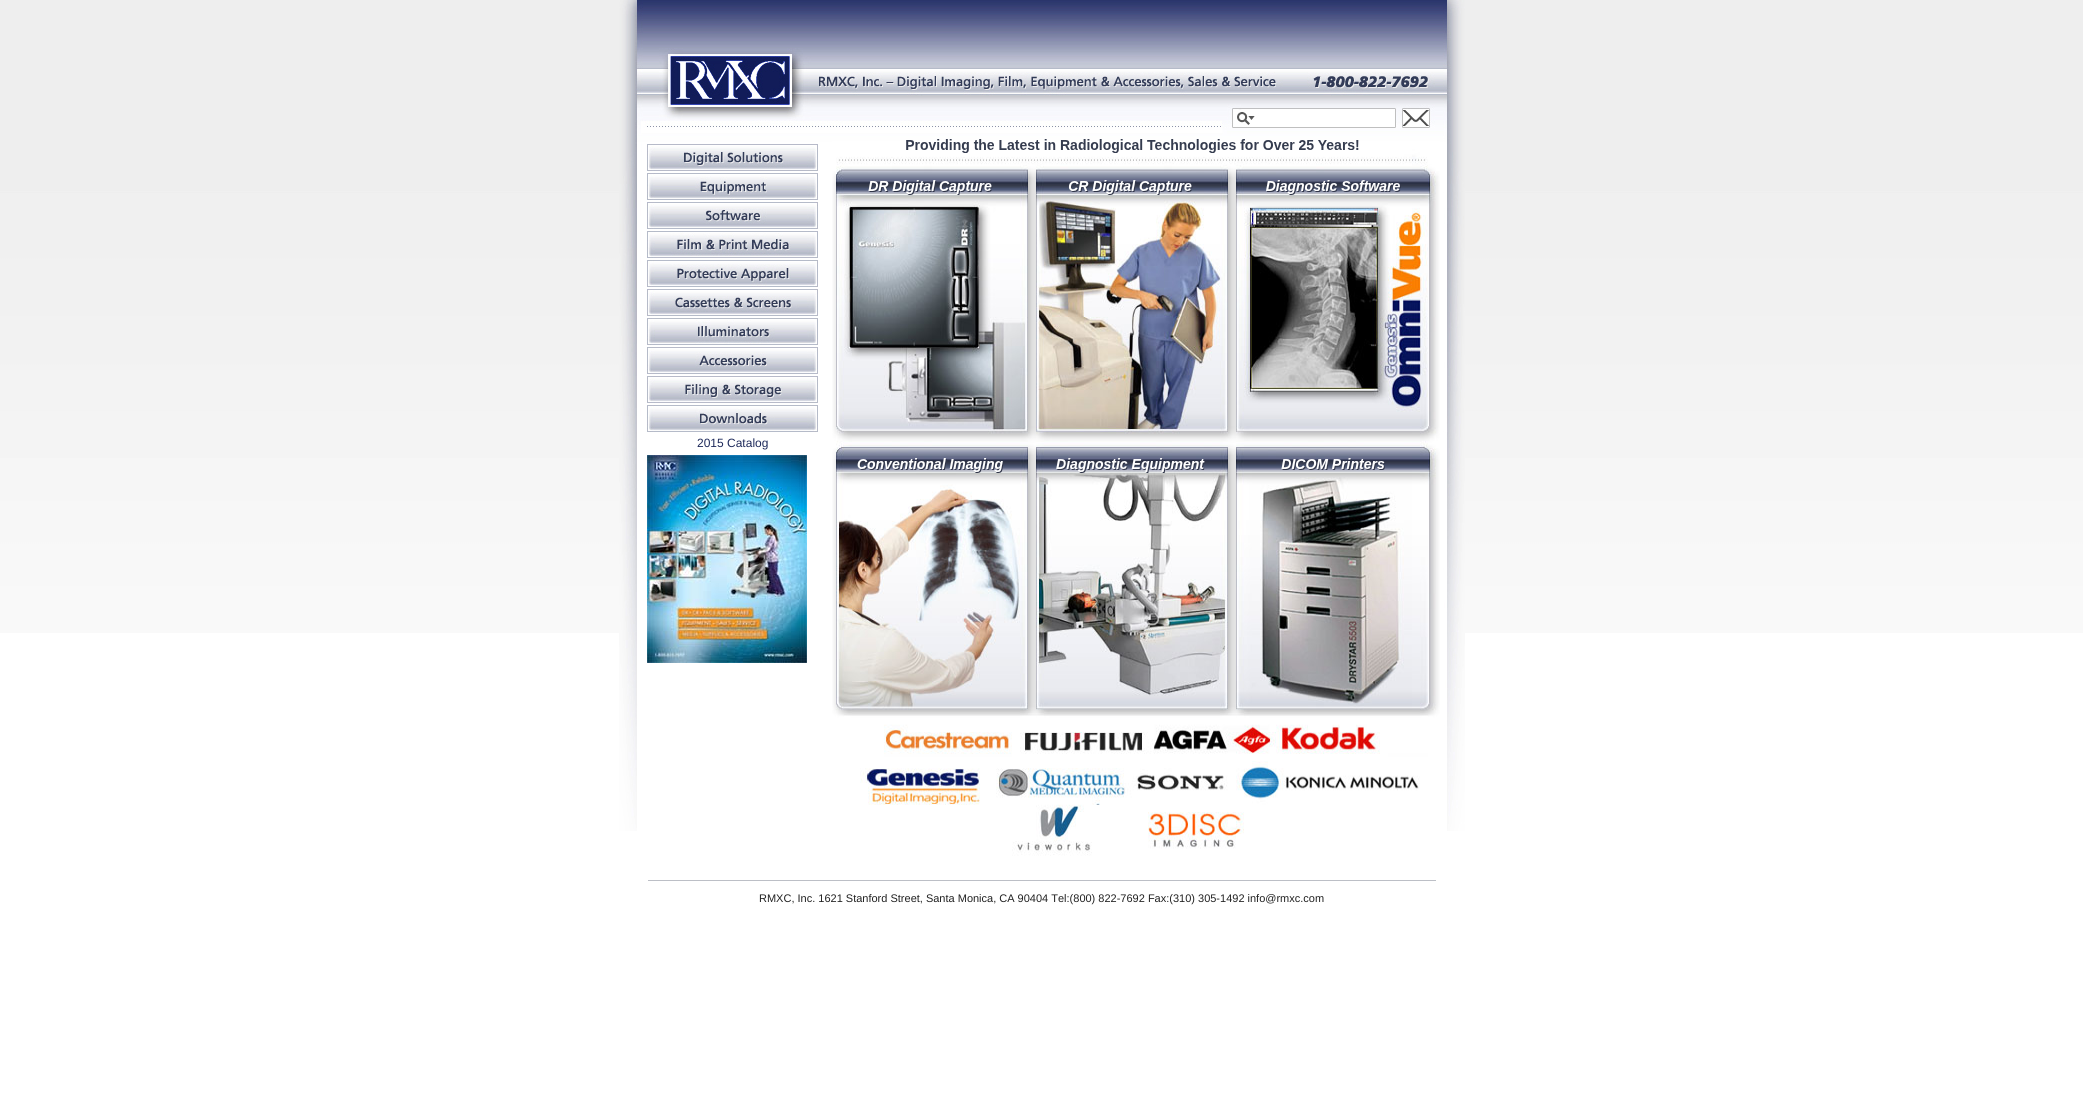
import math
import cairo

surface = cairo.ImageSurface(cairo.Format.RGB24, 2083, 1093)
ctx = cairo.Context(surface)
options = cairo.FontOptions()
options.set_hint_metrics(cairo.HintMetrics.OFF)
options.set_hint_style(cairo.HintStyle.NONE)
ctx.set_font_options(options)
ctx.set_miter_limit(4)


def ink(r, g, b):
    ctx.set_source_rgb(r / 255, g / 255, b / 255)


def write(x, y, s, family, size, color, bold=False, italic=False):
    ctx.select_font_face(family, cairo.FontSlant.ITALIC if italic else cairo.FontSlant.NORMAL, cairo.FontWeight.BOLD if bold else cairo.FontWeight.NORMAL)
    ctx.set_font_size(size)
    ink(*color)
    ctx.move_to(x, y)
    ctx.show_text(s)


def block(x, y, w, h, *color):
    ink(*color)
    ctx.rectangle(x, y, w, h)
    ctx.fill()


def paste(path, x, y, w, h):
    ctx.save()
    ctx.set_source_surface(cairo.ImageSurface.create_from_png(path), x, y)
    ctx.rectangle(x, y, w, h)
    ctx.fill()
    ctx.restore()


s1 = dict(family="Liberation Sans", size=12, color=(30, 42, 91))
s2 = dict(family="Liberation Sans", size=11, color=(33, 33, 33))

ink(255, 255, 255)
ctx.paint()
paste("pic1.png", 0, 0, 2083, 633)
paste("pic2.png", 619, 0, 846, 831)
paste("pic3.png", 647, 144, 171, 27)
paste("pic4.png", 647, 173, 171, 27)
paste("pic5.png", 647, 202, 171, 27)
paste("pic6.png", 647, 231, 171, 27)
paste("pic7.png", 647, 260, 171, 27)
paste("pic8.png", 647, 289, 171, 27)
paste("pic9.png", 647, 318, 171, 27)
paste("pic10.png", 647, 347, 171, 27)
paste("pic11.png", 647, 376, 171, 27)
paste("pic12.png", 647, 405, 171, 27)
write(697, 447, "2015 Catalog", **s1)
paste("pic13.png", 647, 455, 160, 208)
paste("pic14.png", 832, 139, 608, 717)
block(648, 880, 788, 1, 188, 191, 198)
write(759, 902, "RMXC, Inc. 1621 Stanford Street, Santa Monica, CA 90404 Tel:(800) 822-7692 Fax:(310) 305-1492 info@rmxc.com", **s2)
surface.write_to_png("screenshot.png")
